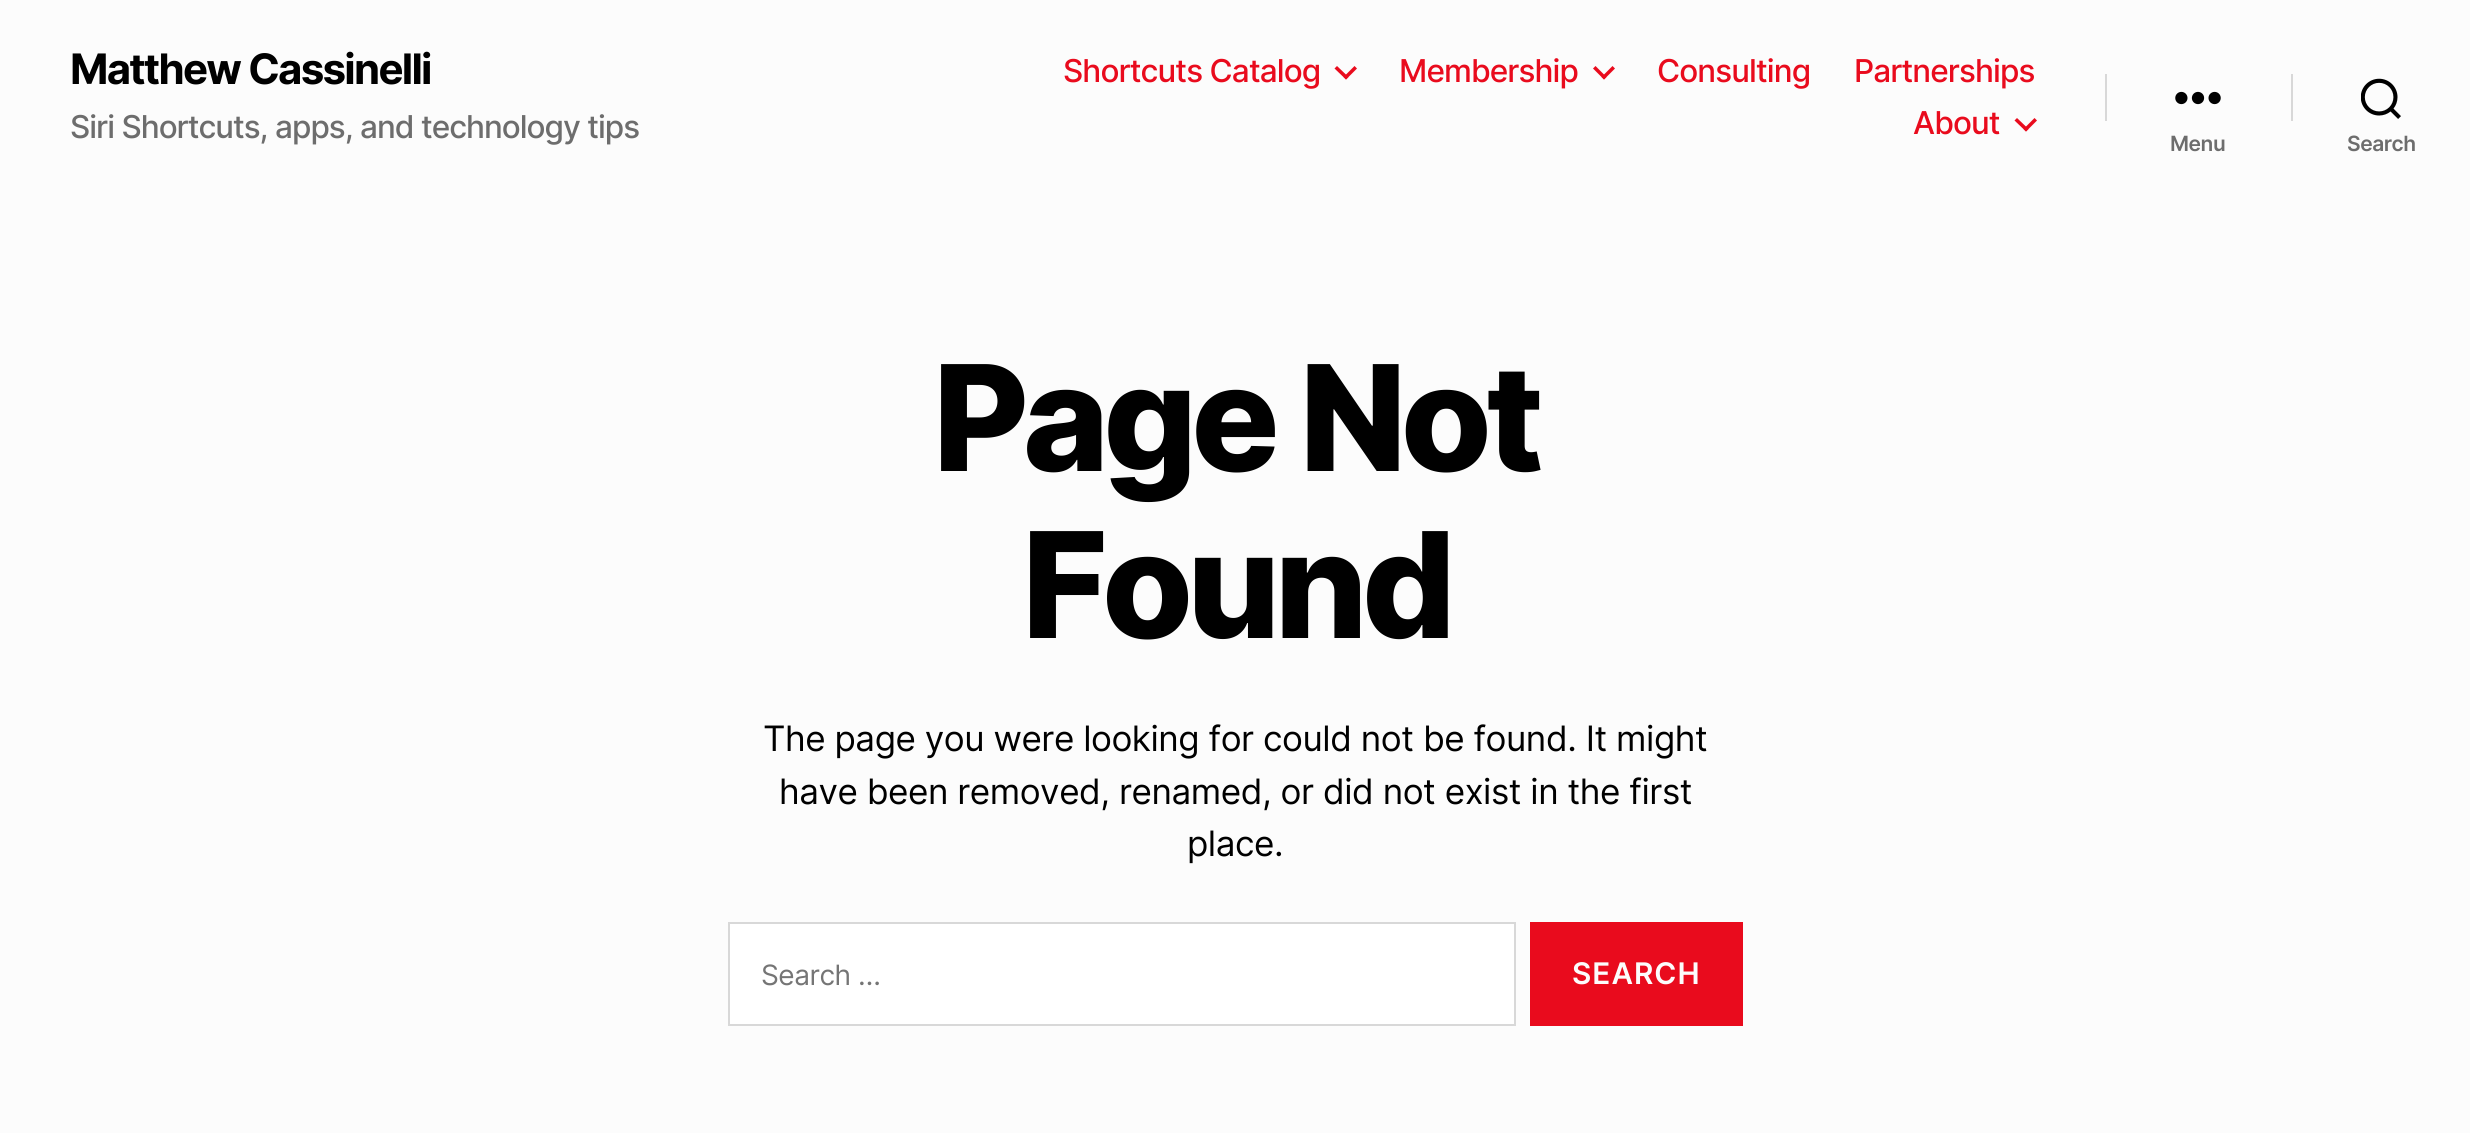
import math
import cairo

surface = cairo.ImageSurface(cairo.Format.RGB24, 2470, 1133)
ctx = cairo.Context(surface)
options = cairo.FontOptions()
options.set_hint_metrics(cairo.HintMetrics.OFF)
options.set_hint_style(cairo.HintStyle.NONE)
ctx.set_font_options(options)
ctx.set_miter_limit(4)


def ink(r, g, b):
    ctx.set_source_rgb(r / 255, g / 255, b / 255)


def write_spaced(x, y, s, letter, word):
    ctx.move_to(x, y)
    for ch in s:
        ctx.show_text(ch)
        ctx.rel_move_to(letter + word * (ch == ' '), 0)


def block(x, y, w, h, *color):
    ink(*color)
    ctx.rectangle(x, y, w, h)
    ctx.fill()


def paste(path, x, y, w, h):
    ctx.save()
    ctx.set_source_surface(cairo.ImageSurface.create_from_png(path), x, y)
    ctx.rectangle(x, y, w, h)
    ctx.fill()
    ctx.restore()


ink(252, 252, 252)
ctx.paint()
ctx.select_font_face("Inter", cairo.FontSlant.NORMAL, cairo.FontWeight.BOLD)
ctx.set_font_size(42)
ink(0, 0, 0)
write_spaced(70, 84, "Matthew Cassinelli", -1.75, 0)
ctx.select_font_face("Inter Medium")
ctx.set_font_size(31.5)
ink(109, 109, 109)
write_spaced(70, 138, "Siri Shortcuts, apps, and technology tips", -1, 0)
ink(233, 11, 29)
write_spaced(1063, 82, "Shortcuts Catalog", -0.9, 0)
ctx.new_path()
ctx.move_to(1334.5, 68.5)
ctx.line_to(1337, 66)
ctx.line_to(1348.5, 77)
ctx.line_to(1346, 79.5)
ctx.close_path()
ctx.fill()
ctx.new_path()
ctx.move_to(1343.5, 77)
ctx.line_to(1354.5, 66)
ctx.line_to(1357, 68.5)
ctx.line_to(1346, 79.5)
ctx.close_path()
ctx.fill()
write_spaced(1399, 82, "Membership", -0.9, 0)
ctx.new_path()
ctx.move_to(1593, 68.5)
ctx.line_to(1595.5, 66)
ctx.line_to(1606.5, 77)
ctx.line_to(1604, 79.5)
ctx.close_path()
ctx.fill()
ctx.new_path()
ctx.move_to(1601.5, 77)
ctx.line_to(1612.5, 66)
ctx.line_to(1615, 68.5)
ctx.line_to(1604, 79.5)
ctx.close_path()
ctx.fill()
write_spaced(1657, 82, "Consulting", -0.9, 0)
write_spaced(1854, 82, "Partnerships", -0.9, 0)
write_spaced(1913, 134, "About", -0.9, 0)
ctx.new_path()
ctx.move_to(2014.5, 120.5)
ctx.line_to(2017, 118)
ctx.line_to(2028.5, 129)
ctx.line_to(2026, 131.5)
ctx.close_path()
ctx.fill()
ctx.new_path()
ctx.move_to(2023.5, 129)
ctx.line_to(2034.5, 118)
ctx.line_to(2037, 120.5)
ctx.line_to(2026, 131.5)
ctx.close_path()
ctx.fill()
block(2105, 74, 2, 47, 216, 216, 216)
paste("pic1.png", 2175, 91, 46, 14)
ctx.select_font_face("Inter SemiBold")
ctx.set_font_size(21)
ink(109, 109, 109)
write_spaced(2170, 151, "Menu", -0.47, 0)
block(2291, 74, 2, 47, 216, 216, 216)
paste("pic2.png", 2361, 78, 40, 41)
ink(109, 109, 109)
write_spaced(2347, 151, "Search", -0.47, 0)
ctx.select_font_face("Inter ExtraBold")
ctx.set_font_size(147)
ink(0, 0, 0)
write_spaced(933, 471, "Page Not", -6, 0)
write_spaced(1022, 638, "Found", -6, 0)
ctx.select_font_face("Inter")
ctx.set_font_size(35)
write_spaced(763, 751, "The page you were looking for could not be found. It might", -0.47, 0)
write_spaced(779, 804, "have been removed, renamed, or did not exist in the first", -0.47, 0)
write_spaced(1187, 856, "place.", -0.47, 0)
ink(255, 255, 255)
ctx.rectangle(729, 923, 786, 102)
ctx.fill_preserve()
ink(216, 216, 216)
ctx.stroke()
ctx.set_font_size(28)
ink(117, 117, 117)
write_spaced(761, 985, "Search …", -0.5, 0)
block(1530, 922, 213, 104, 233, 11, 29)
ctx.select_font_face("Inter SemiBold")
ctx.set_font_size(29.75)
ink(252, 252, 252)
write_spaced(1572, 984, "SEARCH", 1, 0)
surface.write_to_png("screenshot.png")
